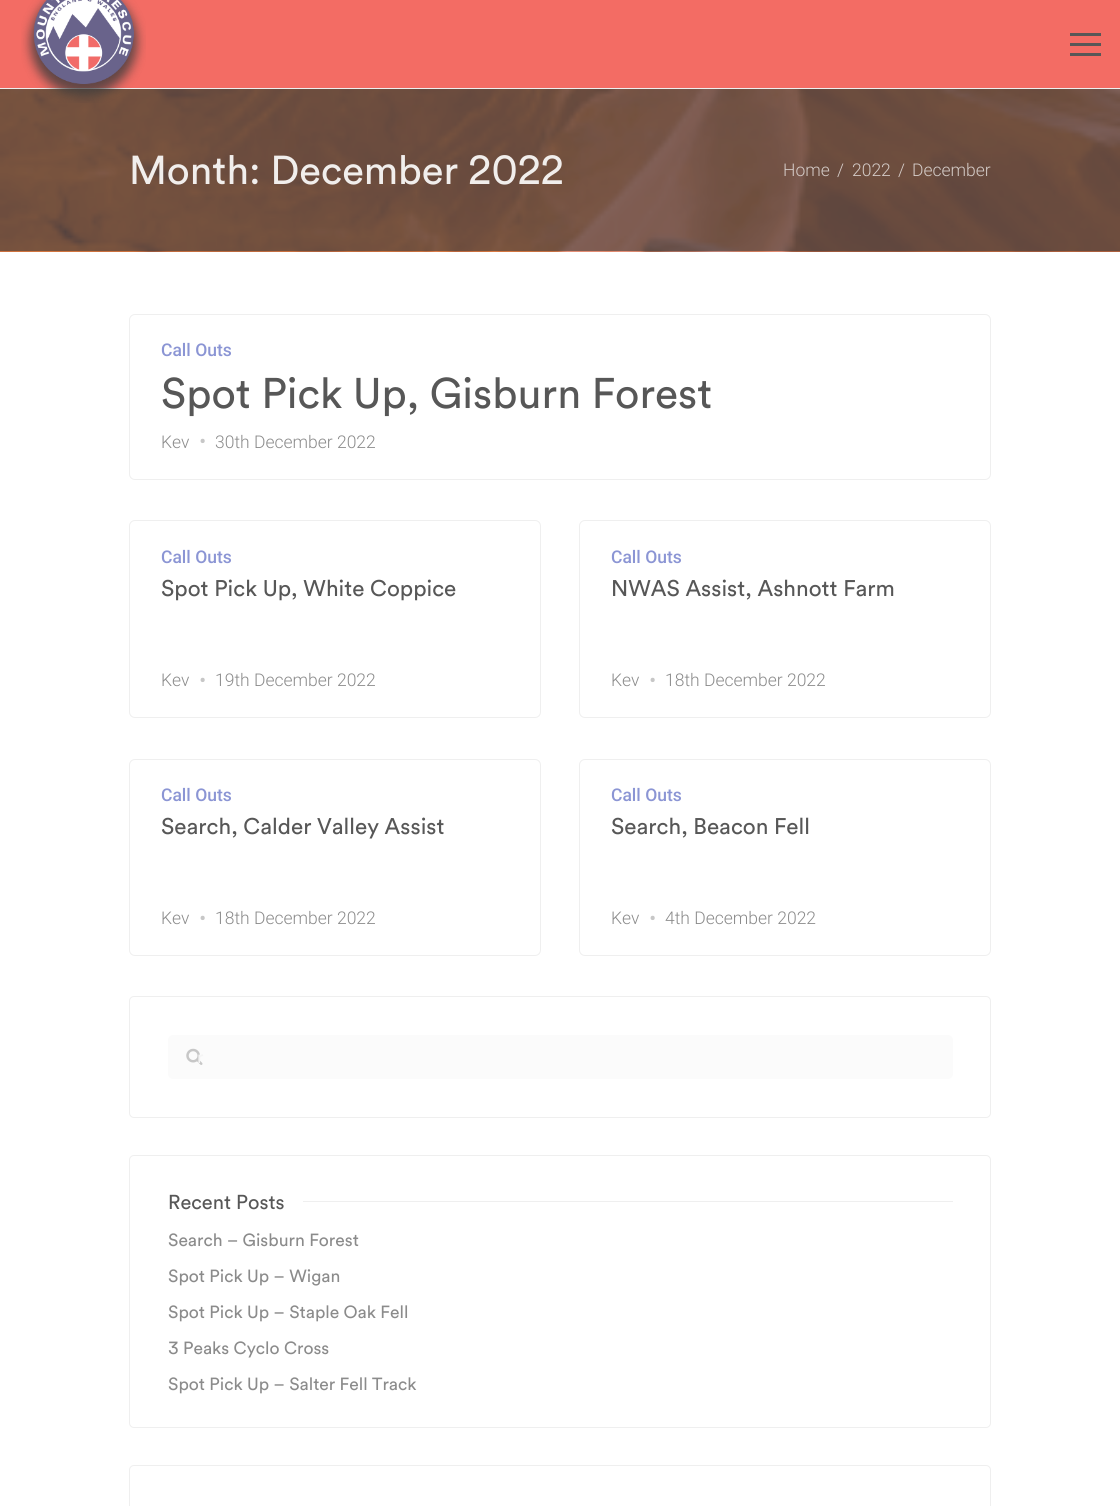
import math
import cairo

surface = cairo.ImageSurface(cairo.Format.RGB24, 1120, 1506)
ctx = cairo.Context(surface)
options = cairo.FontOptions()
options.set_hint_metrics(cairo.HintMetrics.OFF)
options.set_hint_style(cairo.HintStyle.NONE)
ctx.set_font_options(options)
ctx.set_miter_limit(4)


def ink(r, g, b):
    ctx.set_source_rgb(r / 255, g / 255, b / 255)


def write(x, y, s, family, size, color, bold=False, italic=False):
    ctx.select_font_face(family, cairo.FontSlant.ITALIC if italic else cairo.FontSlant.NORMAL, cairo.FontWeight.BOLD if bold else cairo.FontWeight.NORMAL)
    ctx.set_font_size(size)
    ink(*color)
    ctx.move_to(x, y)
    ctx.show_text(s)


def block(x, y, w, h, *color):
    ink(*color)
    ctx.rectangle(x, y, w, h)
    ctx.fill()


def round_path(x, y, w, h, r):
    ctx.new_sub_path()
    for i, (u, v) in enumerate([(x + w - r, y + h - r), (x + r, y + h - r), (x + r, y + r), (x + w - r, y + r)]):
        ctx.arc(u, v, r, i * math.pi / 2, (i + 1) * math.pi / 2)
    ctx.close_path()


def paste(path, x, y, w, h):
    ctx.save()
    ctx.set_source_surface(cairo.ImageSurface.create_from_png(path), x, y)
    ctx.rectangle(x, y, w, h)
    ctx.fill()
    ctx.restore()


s1 = dict(family="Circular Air", size=40, color=(241, 238, 236))
s2 = dict(family="Roboto Light", size=17.5, color=(212, 203, 199))
s3 = dict(family="Roboto Medium", size=17.5, color=(139, 149, 212))
s4 = dict(family="Circular Air", size=42.5, color=(87, 87, 87))
s5 = dict(family="Roboto Light", size=17.5, color=(139, 139, 139))
s6 = dict(family="Roboto Light", size=22.5, color=(199, 199, 199))
s7 = dict(family="Circular Air", size=22.5, color=(87, 87, 87))
s8 = dict(family="Circular Air", size=17.5, color=(244, 244, 244))
s9 = dict(family="Circular Air", size=20, color=(87, 87, 87))
s10 = dict(family="Circular Air", size=17.5, color=(139, 139, 139))

ink(255, 255, 255)
ctx.paint()
block(0, 0, 1120, 88, 243, 108, 100)
block(0, 88, 1120, 1, 239, 239, 239)
paste("pic2.png", 0, 89, 1120, 163)
paste("pic1.png", 21, 0, 125, 103)
block(1070, 43, 31, 3, 87, 87, 87)
block(1070, 33, 31, 3, 87, 87, 87)
block(1070, 53, 31, 3, 87, 87, 87)
write(129, 184, "Month: December 2022", **s1)
write(783, 176, "Home", **s2)
write(837, 176, "/", **s2)
write(852, 176, "2022", **s2)
write(898, 176, "/", **s2)
write(912, 176, "December", **s2)
round_path(129.5, 314.5, 861, 165, 5.5)
ink(239, 239, 239)
ctx.set_line_width(1)
ctx.stroke()
write(161, 356, "Call Outs", **s3)
write(161, 408, "Spot Pick Up, Gisburn Forest", **s4)
write(161, 448, "Kev", **s5)
write(199, 449, "•", **s6)
write(215, 448, "30th December 2022", **s5)
round_path(129.5, 520.5, 411, 197, 5.5)
ink(239, 239, 239)
ctx.stroke()
write(161, 563, "Call Outs", **s3)
write(161, 596, "Spot Pick Up, White Coppice", **s7)
write(161, 686, "Kev", **s5)
write(199, 688, "•", **s6)
write(215, 686, "19th December 2022", **s5)
round_path(579.5, 520.5, 411, 197, 5.5)
ink(239, 239, 239)
ctx.stroke()
write(611, 563, "Call Outs", **s3)
write(611, 596, "NWAS Assist, Ashnott Farm", **s7)
write(611, 686, "Kev", **s5)
write(649, 688, "•", **s6)
write(665, 686, "18th December 2022", **s5)
round_path(129.5, 759.5, 411, 196, 5.5)
ink(239, 239, 239)
ctx.stroke()
write(161, 801, "Call Outs", **s3)
write(161, 834, "Search, Calder Valley Assist", **s7)
write(161, 924, "Kev", **s5)
write(199, 926, "•", **s6)
write(215, 924, "18th December 2022", **s5)
round_path(579.5, 759.5, 411, 196, 5.5)
ink(239, 239, 239)
ctx.stroke()
write(611, 801, "Call Outs", **s3)
write(611, 834, "Search, Beacon Fell", **s7)
write(611, 924, "Kev", **s5)
write(649, 926, "•", **s6)
write(665, 924, "4th December 2022", **s5)
round_path(129.5, 996.5, 861, 121, 4.5)
ink(239, 239, 239)
ctx.stroke()
ink(251, 251, 251)
round_path(168, 1035, 785, 44, 5)
ctx.fill()
paste("pic3.png", 186, 1048, 17, 17)
write(197, 1063, "r", **s8)
round_path(129.5, 1155.5, 861, 272, 4.5)
ink(239, 239, 239)
ctx.stroke()
write(168, 1209, "Recent Posts", **s9)
block(303, 1201, 650, 1, 239, 239, 239)
write(168, 1246, "Search – Gisburn Forest", **s10)
write(168, 1282, "Spot Pick Up – Wigan", **s10)
write(168, 1318, "Spot Pick Up – Staple Oak Fell", **s10)
write(168, 1354, "3 Peaks Cyclo Cross", **s10)
write(168, 1390, "Spot Pick Up – Salter Fell Track", **s10)
round_path(129.5, 1465.5, 861, 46, 4.5)
ink(239, 239, 239)
ctx.stroke()
surface.write_to_png("screenshot.png")
